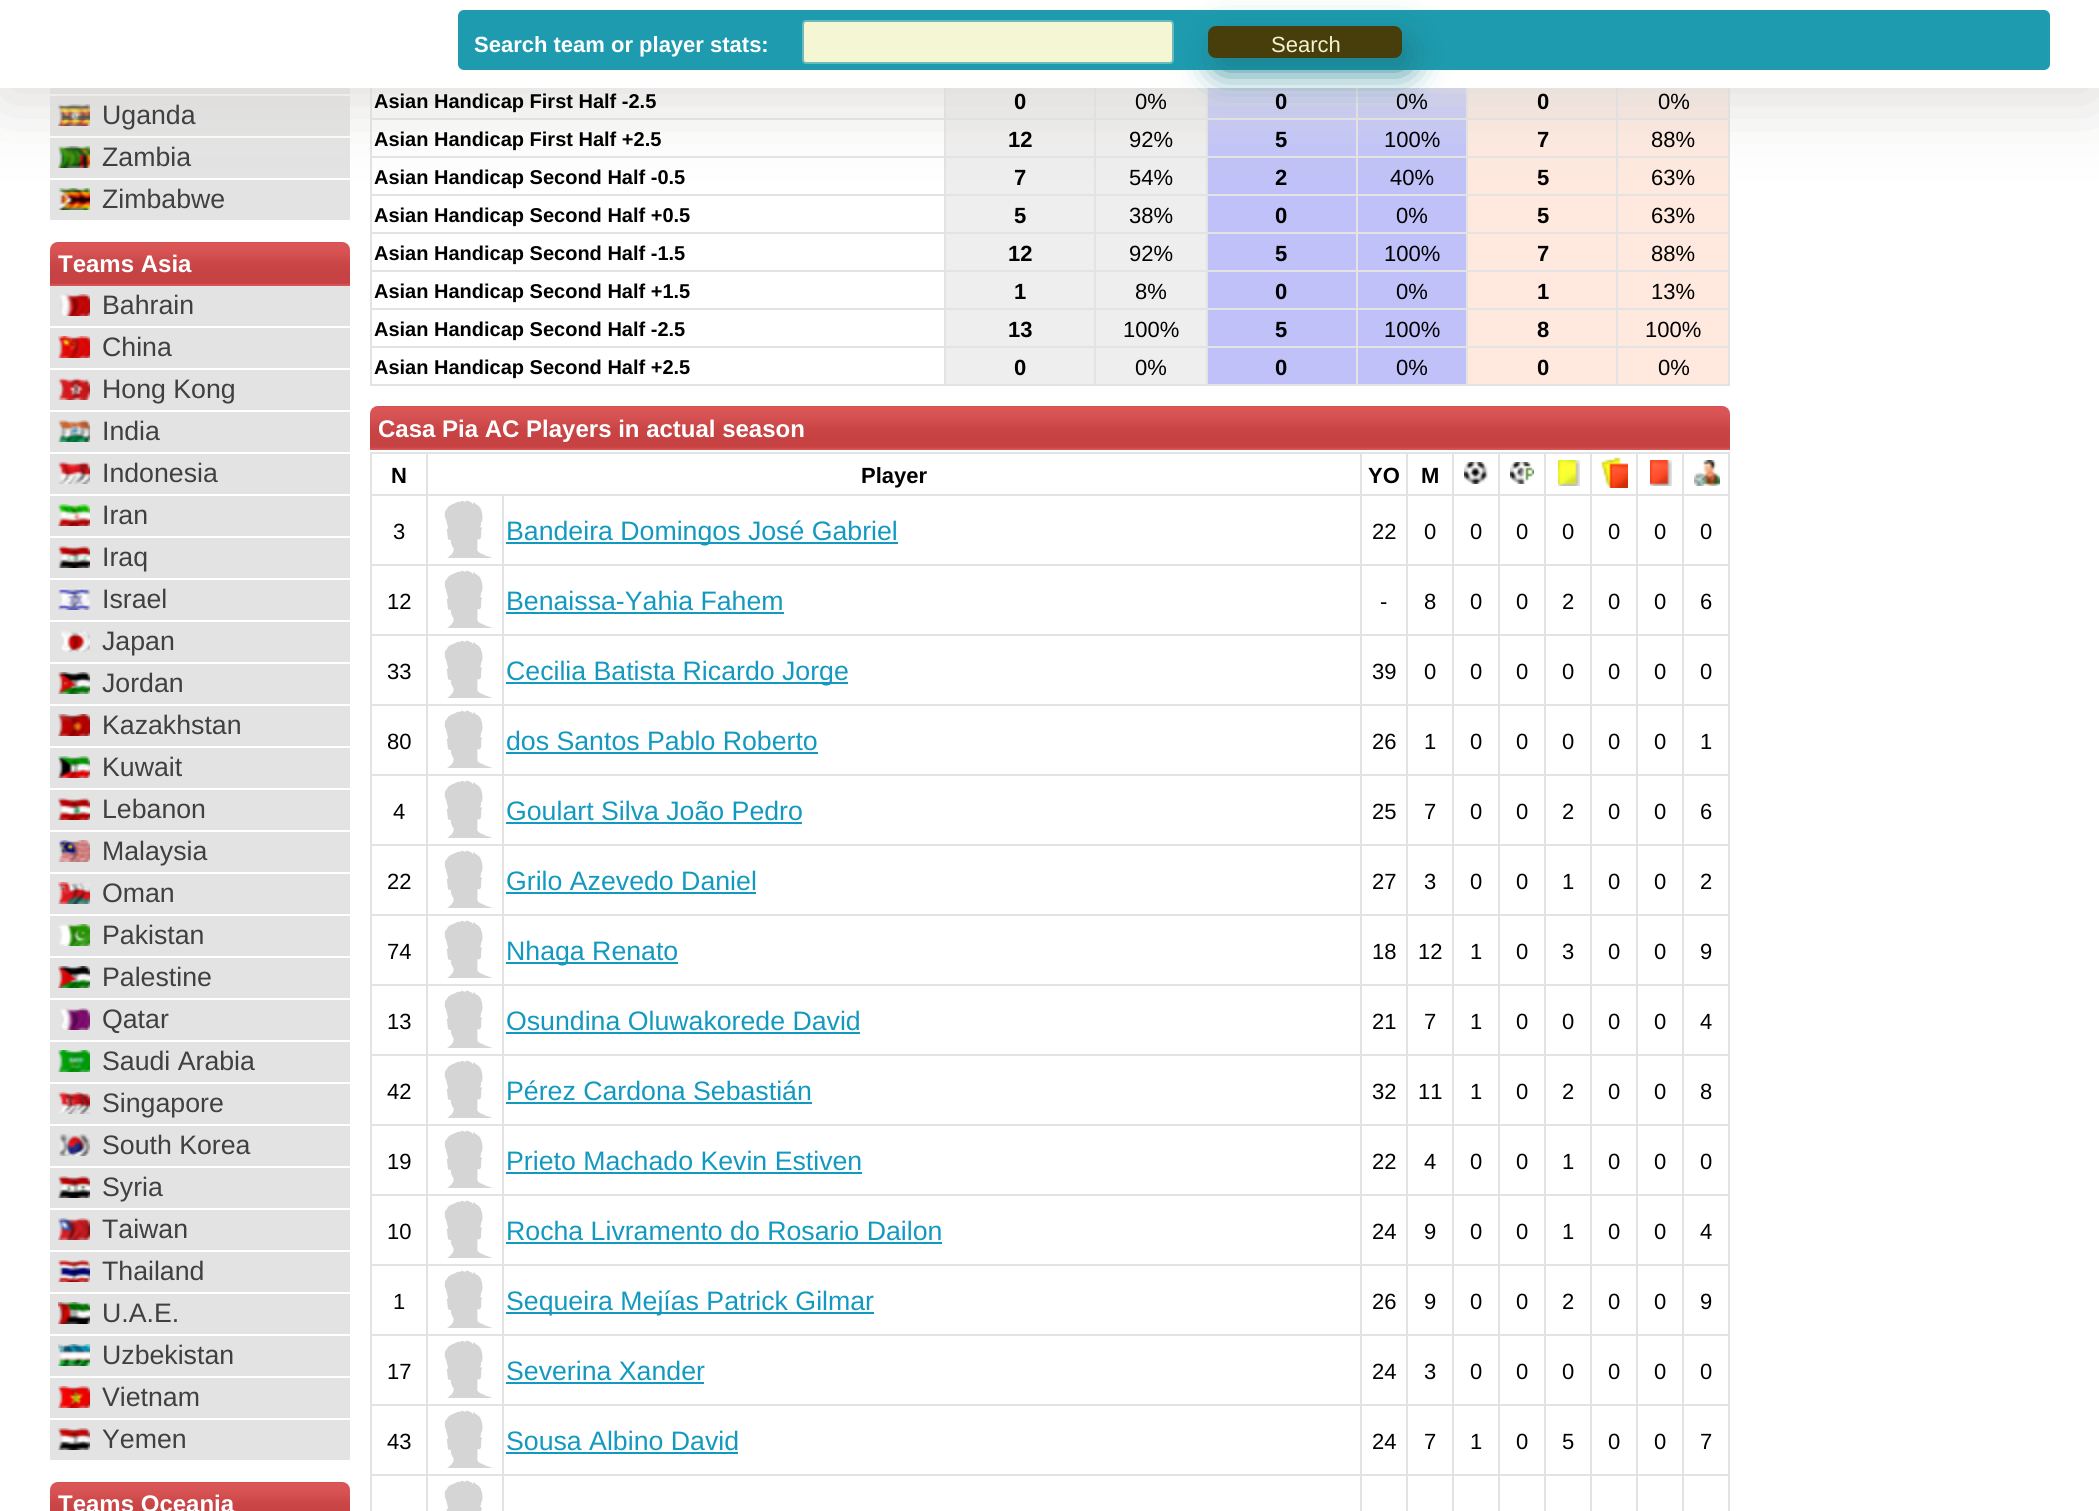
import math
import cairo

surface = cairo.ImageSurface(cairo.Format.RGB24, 2099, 1511)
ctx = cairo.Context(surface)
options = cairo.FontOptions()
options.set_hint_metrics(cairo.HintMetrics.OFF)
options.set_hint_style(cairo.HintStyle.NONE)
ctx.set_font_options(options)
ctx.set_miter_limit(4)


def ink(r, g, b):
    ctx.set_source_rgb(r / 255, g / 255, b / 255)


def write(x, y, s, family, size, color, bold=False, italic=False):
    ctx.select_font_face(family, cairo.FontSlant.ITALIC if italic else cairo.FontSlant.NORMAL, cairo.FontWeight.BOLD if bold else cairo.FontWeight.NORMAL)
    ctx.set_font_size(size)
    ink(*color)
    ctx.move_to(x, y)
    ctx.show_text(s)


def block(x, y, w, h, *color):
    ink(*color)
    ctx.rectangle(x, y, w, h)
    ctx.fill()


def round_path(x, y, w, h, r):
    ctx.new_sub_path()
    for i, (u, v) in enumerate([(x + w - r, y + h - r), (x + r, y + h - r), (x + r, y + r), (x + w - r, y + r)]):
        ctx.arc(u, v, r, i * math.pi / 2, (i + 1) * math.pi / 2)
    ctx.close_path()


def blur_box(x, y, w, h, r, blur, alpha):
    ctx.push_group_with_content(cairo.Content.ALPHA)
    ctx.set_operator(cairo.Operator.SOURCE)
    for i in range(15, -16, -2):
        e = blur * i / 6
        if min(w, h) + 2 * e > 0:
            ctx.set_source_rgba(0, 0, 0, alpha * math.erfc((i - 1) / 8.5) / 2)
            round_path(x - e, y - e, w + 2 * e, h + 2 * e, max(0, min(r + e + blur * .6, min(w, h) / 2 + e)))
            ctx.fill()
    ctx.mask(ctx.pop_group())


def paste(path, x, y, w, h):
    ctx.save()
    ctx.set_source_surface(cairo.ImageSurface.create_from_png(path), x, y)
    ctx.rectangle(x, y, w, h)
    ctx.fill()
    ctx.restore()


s1 = dict(family="Liberation Sans", size=22, color=(255, 255, 255), bold=True)
s2 = dict(family="Liberation Sans", size=22, color=(244, 244, 210))
s3 = dict(family="Liberation Sans", size=26.7, color=(64, 64, 64))
s4 = dict(family="Liberation Sans", size=24, color=(255, 255, 255), bold=True)
s5 = dict(family="Liberation Sans", size=20, color=(0, 0, 0), bold=True)
s6 = dict(family="Liberation Sans", size=22, color=(0, 0, 0), bold=True)
s7 = dict(family="Liberation Sans", size=22, color=(0, 0, 0))
s8 = dict(family="Liberation Sans", size=26.7, color=(19, 153, 191))

ink(255, 255, 255)
ctx.paint()
block(50, 88, 300, 6, 227, 227, 227)
block(50, 96, 300, 40, 227, 227, 227)
paste("pic1.png", 58, 104, 32, 22)
block(50, 138, 300, 40, 227, 227, 227)
paste("pic2.png", 58, 146, 32, 22)
block(50, 180, 300, 40, 227, 227, 227)
paste("pic3.png", 58, 188, 32, 22)
block(1728, 88, 2, 298, 227, 227, 227)
block(370, 384, 1360, 2, 227, 227, 227)
block(370, 88, 2, 298, 227, 227, 227)
block(946, 88, 148, 30, 239, 238, 238)
block(1616, 118, 114, 2, 227, 227, 227)
block(1616, 156, 114, 2, 227, 227, 227)
block(1616, 194, 114, 2, 227, 227, 227)
block(1616, 232, 114, 2, 227, 227, 227)
block(1616, 270, 114, 2, 227, 227, 227)
block(1616, 308, 114, 2, 227, 227, 227)
block(1616, 346, 114, 2, 227, 227, 227)
block(1616, 346, 2, 40, 227, 227, 227)
block(1466, 346, 152, 2, 227, 227, 227)
block(1616, 308, 2, 40, 227, 227, 227)
block(1466, 308, 152, 2, 227, 227, 227)
block(1616, 270, 2, 40, 227, 227, 227)
block(1466, 270, 152, 2, 227, 227, 227)
block(1616, 232, 2, 40, 227, 227, 227)
block(1466, 232, 152, 2, 227, 227, 227)
block(1616, 194, 2, 40, 227, 227, 227)
block(1466, 194, 152, 2, 227, 227, 227)
block(1616, 156, 2, 40, 227, 227, 227)
block(1466, 156, 152, 2, 227, 227, 227)
block(1616, 118, 2, 40, 227, 227, 227)
block(1466, 118, 152, 2, 227, 227, 227)
block(1466, 346, 2, 40, 227, 227, 227)
block(1356, 346, 112, 2, 227, 227, 227)
block(1466, 308, 2, 40, 227, 227, 227)
block(1356, 308, 112, 2, 227, 227, 227)
block(1466, 270, 2, 40, 227, 227, 227)
block(1356, 270, 112, 2, 227, 227, 227)
block(1466, 232, 2, 40, 227, 227, 227)
block(1356, 232, 112, 2, 227, 227, 227)
block(1466, 194, 2, 40, 227, 227, 227)
block(1356, 194, 112, 2, 227, 227, 227)
block(1466, 156, 2, 40, 227, 227, 227)
block(1356, 156, 112, 2, 227, 227, 227)
block(1466, 118, 2, 40, 227, 227, 227)
block(1356, 118, 112, 2, 227, 227, 227)
block(1356, 346, 2, 40, 227, 227, 227)
block(1206, 346, 152, 2, 227, 227, 227)
block(1356, 308, 2, 40, 227, 227, 227)
block(1206, 308, 152, 2, 227, 227, 227)
block(1356, 270, 2, 40, 227, 227, 227)
block(1206, 270, 152, 2, 227, 227, 227)
block(1356, 232, 2, 40, 227, 227, 227)
block(1206, 232, 152, 2, 227, 227, 227)
block(1356, 194, 2, 40, 227, 227, 227)
block(1206, 194, 152, 2, 227, 227, 227)
block(1356, 156, 2, 40, 227, 227, 227)
block(1206, 156, 152, 2, 227, 227, 227)
block(1356, 118, 2, 40, 227, 227, 227)
block(1206, 118, 152, 2, 227, 227, 227)
block(1206, 346, 2, 40, 227, 227, 227)
block(1094, 346, 114, 2, 227, 227, 227)
block(1206, 308, 2, 40, 227, 227, 227)
block(1094, 308, 114, 2, 227, 227, 227)
block(1206, 270, 2, 40, 227, 227, 227)
block(1094, 270, 114, 2, 227, 227, 227)
block(1206, 232, 2, 40, 227, 227, 227)
block(1094, 232, 114, 2, 227, 227, 227)
block(1206, 194, 2, 40, 227, 227, 227)
block(1094, 194, 114, 2, 227, 227, 227)
block(1206, 156, 2, 40, 227, 227, 227)
block(1094, 156, 114, 2, 227, 227, 227)
block(1206, 118, 2, 40, 227, 227, 227)
block(1094, 118, 114, 2, 227, 227, 227)
block(1094, 346, 2, 40, 227, 227, 227)
block(944, 346, 152, 2, 227, 227, 227)
block(1094, 308, 2, 40, 227, 227, 227)
block(944, 308, 152, 2, 227, 227, 227)
block(1094, 270, 2, 40, 227, 227, 227)
block(944, 270, 152, 2, 227, 227, 227)
block(1094, 232, 2, 40, 227, 227, 227)
block(944, 232, 152, 2, 227, 227, 227)
block(1094, 194, 2, 40, 227, 227, 227)
block(944, 194, 152, 2, 227, 227, 227)
block(1094, 156, 2, 40, 227, 227, 227)
block(944, 156, 152, 2, 227, 227, 227)
block(1094, 118, 2, 40, 227, 227, 227)
block(944, 118, 152, 2, 227, 227, 227)
block(944, 346, 2, 40, 227, 227, 227)
block(370, 346, 576, 2, 227, 227, 227)
block(944, 308, 2, 40, 227, 227, 227)
block(370, 308, 576, 2, 227, 227, 227)
block(944, 270, 2, 40, 227, 227, 227)
block(370, 270, 576, 2, 227, 227, 227)
block(944, 232, 2, 40, 227, 227, 227)
block(370, 232, 576, 2, 227, 227, 227)
block(944, 194, 2, 40, 227, 227, 227)
block(370, 194, 576, 2, 227, 227, 227)
block(944, 156, 2, 40, 227, 227, 227)
block(370, 156, 576, 2, 227, 227, 227)
block(944, 118, 2, 40, 227, 227, 227)
block(370, 118, 576, 2, 227, 227, 227)
block(944, 80, 2, 40, 227, 227, 227)
block(1096, 88, 110, 30, 239, 238, 238)
block(1094, 80, 2, 40, 227, 227, 227)
block(1208, 88, 148, 30, 191, 193, 248)
block(1206, 80, 2, 40, 227, 227, 227)
block(1358, 88, 108, 30, 191, 193, 248)
block(1356, 80, 2, 40, 227, 227, 227)
block(1468, 88, 148, 30, 255, 233, 222)
block(1466, 80, 2, 40, 227, 227, 227)
block(1618, 88, 110, 30, 255, 233, 222)
block(1616, 80, 2, 40, 227, 227, 227)
block(946, 120, 148, 36, 239, 238, 238)
block(1096, 120, 110, 36, 239, 238, 238)
block(1208, 120, 148, 36, 191, 193, 248)
block(1358, 120, 108, 36, 191, 193, 248)
block(1468, 120, 148, 36, 255, 233, 222)
block(1618, 120, 110, 36, 255, 233, 222)
block(946, 158, 148, 36, 239, 238, 238)
block(1096, 158, 110, 36, 239, 238, 238)
block(1208, 158, 148, 36, 191, 193, 248)
block(1358, 158, 108, 36, 191, 193, 248)
block(1468, 158, 148, 36, 255, 233, 222)
block(1618, 158, 110, 36, 255, 233, 222)
block(946, 196, 148, 36, 239, 238, 238)
block(1096, 196, 110, 36, 239, 238, 238)
block(1208, 196, 148, 36, 191, 193, 248)
block(1358, 196, 108, 36, 191, 193, 248)
block(1468, 196, 148, 36, 255, 233, 222)
block(1618, 196, 110, 36, 255, 233, 222)
ink(221, 220, 218)
blur_box(0, 12, 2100, 88, 0, 38, 1)
block(0, 0, 2099, 88, 255, 255, 255)
ink(30, 155, 175)
round_path(458, 10, 1592, 60, 6)
ctx.fill()
write(474, 52, "Search team or player stats:", **s1)
ink(245, 246, 212)
round_path(803, 21, 370, 42, 3)
ctx.fill_preserve()
ink(107, 187, 186)
ctx.stroke()
ink(26, 130, 143)
blur_box(1216, 38, 194, 32, 8, 18, 1)
ink(72, 62, 11)
round_path(1209, 27, 192, 30, 7)
ctx.fill_preserve()
ink(70, 63, 11)
ctx.stroke()
write(1271, 52, "Search", **s2)
write(102, 124, "Uganda", **s3)
write(102, 166, "Zambia", **s3)
write(102, 208, "Zimbabwe", **s3)
paste("pic4.png", 50, 242, 300, 44)
write(58, 272, "Teams Asia", **s4)
block(50, 286, 300, 40, 227, 227, 227)
paste("pic5.png", 59, 294, 31, 22)
write(102, 314, "Bahrain", **s3)
block(50, 328, 300, 40, 227, 227, 227)
paste("pic6.png", 58, 336, 32, 22)
write(102, 356, "China", **s3)
block(50, 370, 300, 40, 227, 227, 227)
paste("pic7.png", 58, 378, 32, 22)
write(102, 398, "Hong Kong", **s3)
block(50, 412, 300, 40, 227, 227, 227)
paste("pic8.png", 58, 420, 32, 22)
write(102, 440, "India", **s3)
block(50, 454, 300, 40, 227, 227, 227)
paste("pic9.png", 58, 462, 32, 22)
write(102, 482, "Indonesia", **s3)
block(50, 496, 300, 40, 227, 227, 227)
paste("pic10.png", 58, 504, 32, 22)
write(102, 524, "Iran", **s3)
block(50, 538, 300, 40, 227, 227, 227)
paste("pic11.png", 58, 546, 32, 22)
write(102, 566, "Iraq", **s3)
block(50, 580, 300, 40, 227, 227, 227)
paste("pic12.png", 58, 588, 32, 22)
write(102, 608, "Israel", **s3)
block(50, 622, 300, 40, 227, 227, 227)
paste("pic13.png", 61, 630, 29, 22)
write(102, 650, "Japan", **s3)
block(50, 664, 300, 40, 227, 227, 227)
paste("pic14.png", 58, 672, 32, 22)
write(102, 692, "Jordan", **s3)
block(50, 706, 300, 40, 227, 227, 227)
paste("pic15.png", 58, 714, 32, 22)
write(102, 734, "Kazakhstan", **s3)
block(50, 748, 300, 40, 227, 227, 227)
paste("pic16.png", 58, 756, 32, 22)
write(102, 776, "Kuwait", **s3)
block(50, 790, 300, 40, 227, 227, 227)
paste("pic17.png", 58, 798, 32, 22)
write(102, 818, "Lebanon", **s3)
block(50, 832, 300, 40, 227, 227, 227)
paste("pic18.png", 58, 840, 32, 22)
write(102, 860, "Malaysia", **s3)
block(50, 874, 300, 40, 227, 227, 227)
paste("pic19.png", 58, 882, 32, 22)
write(102, 902, "Oman", **s3)
block(50, 916, 300, 40, 227, 227, 227)
paste("pic20.png", 58, 924, 32, 22)
write(102, 944, "Pakistan", **s3)
block(50, 958, 300, 40, 227, 227, 227)
paste("pic21.png", 58, 966, 32, 22)
write(102, 986, "Palestine", **s3)
block(50, 1000, 300, 40, 227, 227, 227)
paste("pic22.png", 60, 1008, 30, 22)
write(102, 1028, "Qatar", **s3)
block(50, 1042, 300, 40, 227, 227, 227)
paste("pic23.png", 58, 1050, 32, 22)
write(102, 1070, "Saudi Arabia", **s3)
block(50, 1084, 300, 40, 227, 227, 227)
paste("pic24.png", 58, 1092, 32, 22)
write(102, 1112, "Singapore", **s3)
block(50, 1126, 300, 40, 227, 227, 227)
paste("pic25.png", 59, 1134, 31, 22)
write(102, 1154, "South Korea", **s3)
block(50, 1168, 300, 40, 227, 227, 227)
paste("pic26.png", 58, 1176, 32, 22)
write(102, 1196, "Syria", **s3)
block(50, 1210, 300, 40, 227, 227, 227)
paste("pic27.png", 58, 1218, 32, 22)
write(102, 1238, "Taiwan", **s3)
block(50, 1252, 300, 40, 227, 227, 227)
paste("pic28.png", 58, 1260, 32, 22)
write(102, 1280, "Thailand", **s3)
block(50, 1294, 300, 40, 227, 227, 227)
paste("pic29.png", 58, 1302, 32, 22)
write(102, 1322, "U.A.E.", **s3)
block(50, 1336, 300, 40, 227, 227, 227)
paste("pic30.png", 58, 1344, 32, 22)
write(102, 1364, "Uzbekistan", **s3)
block(50, 1378, 300, 40, 227, 227, 227)
paste("pic31.png", 58, 1386, 32, 22)
write(102, 1406, "Vietnam", **s3)
block(50, 1420, 300, 40, 227, 227, 227)
paste("pic32.png", 58, 1428, 32, 22)
write(102, 1448, "Yemen", **s3)
paste("pic33.png", 50, 1482, 300, 29)
write(58, 1512, "Teams Oceania", **s4)
write(374, 108, "Asian Handicap First Half -2.5", **s5)
write(1014, 109, "0", **s6)
write(1135, 109, "0%", **s7)
write(1275, 109, "0", **s6)
write(1396, 109, "0%", **s7)
write(1537, 109, "0", **s6)
write(1658, 109, "0%", **s7)
write(374, 146, "Asian Handicap First Half +2.5", **s5)
write(1008, 147, "12", **s6)
write(1129, 147, "92%", **s7)
write(1275, 147, "5", **s6)
write(1384, 147, "100%", **s7)
write(1537, 147, "7", **s6)
write(1651, 147, "88%", **s7)
write(374, 184, "Asian Handicap Second Half -0.5", **s5)
write(1014, 185, "7", **s6)
write(1129, 185, "54%", **s7)
write(1275, 185, "2", **s6)
write(1390, 185, "40%", **s7)
write(1537, 185, "5", **s6)
write(1651, 185, "63%", **s7)
write(374, 222, "Asian Handicap Second Half +0.5", **s5)
write(1014, 223, "5", **s6)
write(1129, 223, "38%", **s7)
write(1275, 223, "0", **s6)
write(1396, 223, "0%", **s7)
write(1537, 223, "5", **s6)
write(1651, 223, "63%", **s7)
write(374, 260, "Asian Handicap Second Half -1.5", **s5)
block(946, 234, 148, 36, 239, 238, 238)
write(1008, 261, "12", **s6)
block(1096, 234, 110, 36, 239, 238, 238)
write(1129, 261, "92%", **s7)
block(1208, 234, 148, 36, 191, 193, 248)
write(1275, 261, "5", **s6)
block(1358, 234, 108, 36, 191, 193, 248)
write(1384, 261, "100%", **s7)
block(1468, 234, 148, 36, 255, 233, 222)
write(1537, 261, "7", **s6)
block(1618, 234, 110, 36, 255, 233, 222)
write(1651, 261, "88%", **s7)
write(374, 298, "Asian Handicap Second Half +1.5", **s5)
block(946, 272, 148, 36, 239, 238, 238)
write(1014, 299, "1", **s6)
block(1096, 272, 110, 36, 239, 238, 238)
write(1135, 299, "8%", **s7)
block(1208, 272, 148, 36, 191, 193, 248)
write(1275, 299, "0", **s6)
block(1358, 272, 108, 36, 191, 193, 248)
write(1396, 299, "0%", **s7)
block(1468, 272, 148, 36, 255, 233, 222)
write(1537, 299, "1", **s6)
block(1618, 272, 110, 36, 255, 233, 222)
write(1651, 299, "13%", **s7)
write(374, 336, "Asian Handicap Second Half -2.5", **s5)
block(946, 310, 148, 36, 239, 238, 238)
write(1008, 337, "13", **s6)
block(1096, 310, 110, 36, 239, 238, 238)
write(1123, 337, "100%", **s7)
block(1208, 310, 148, 36, 191, 193, 248)
write(1275, 337, "5", **s6)
block(1358, 310, 108, 36, 191, 193, 248)
write(1384, 337, "100%", **s7)
block(1468, 310, 148, 36, 255, 233, 222)
write(1537, 337, "8", **s6)
block(1618, 310, 110, 36, 255, 233, 222)
write(1645, 337, "100%", **s7)
write(374, 374, "Asian Handicap Second Half +2.5", **s5)
block(946, 348, 148, 36, 239, 238, 238)
write(1014, 375, "0", **s6)
block(1096, 348, 110, 36, 239, 238, 238)
write(1135, 375, "0%", **s7)
block(1208, 348, 148, 36, 191, 193, 248)
write(1275, 375, "0", **s6)
block(1358, 348, 108, 36, 191, 193, 248)
write(1396, 375, "0%", **s7)
block(1468, 348, 148, 36, 255, 233, 222)
write(1537, 375, "0", **s6)
block(1618, 348, 110, 36, 255, 233, 222)
write(1658, 375, "0%", **s7)
paste("pic34.png", 370, 406, 1360, 44)
write(378, 437, "Casa Pia AC Players in actual season", **s4)
block(370, 452, 1360, 2, 227, 227, 227)
block(1728, 452, 2, 1059, 227, 227, 227)
block(370, 452, 2, 1059, 227, 227, 227)
write(391, 483, "N", **s6)
block(1682, 494, 48, 2, 227, 227, 227)
block(1682, 564, 48, 2, 227, 227, 227)
block(1682, 634, 48, 2, 227, 227, 227)
block(1682, 704, 48, 2, 227, 227, 227)
block(1682, 774, 48, 2, 227, 227, 227)
block(1682, 844, 48, 2, 227, 227, 227)
block(1682, 914, 48, 2, 227, 227, 227)
block(1682, 984, 48, 2, 227, 227, 227)
block(1682, 1054, 48, 2, 227, 227, 227)
block(1682, 1124, 48, 2, 227, 227, 227)
block(1682, 1194, 48, 2, 227, 227, 227)
block(1682, 1264, 48, 2, 227, 227, 227)
block(1682, 1334, 48, 2, 227, 227, 227)
block(1682, 1404, 48, 2, 227, 227, 227)
block(1682, 1474, 48, 2, 227, 227, 227)
block(1682, 1474, 2, 37, 227, 227, 227)
block(1636, 1474, 48, 2, 227, 227, 227)
block(1682, 1404, 2, 72, 227, 227, 227)
block(1636, 1404, 48, 2, 227, 227, 227)
block(1682, 1334, 2, 72, 227, 227, 227)
block(1636, 1334, 48, 2, 227, 227, 227)
block(1682, 1264, 2, 72, 227, 227, 227)
block(1636, 1264, 48, 2, 227, 227, 227)
block(1682, 1194, 2, 72, 227, 227, 227)
block(1636, 1194, 48, 2, 227, 227, 227)
block(1682, 1124, 2, 72, 227, 227, 227)
block(1636, 1124, 48, 2, 227, 227, 227)
block(1682, 1054, 2, 72, 227, 227, 227)
block(1636, 1054, 48, 2, 227, 227, 227)
block(1682, 984, 2, 72, 227, 227, 227)
block(1636, 984, 48, 2, 227, 227, 227)
block(1682, 914, 2, 72, 227, 227, 227)
block(1636, 914, 48, 2, 227, 227, 227)
block(1682, 844, 2, 72, 227, 227, 227)
block(1636, 844, 48, 2, 227, 227, 227)
block(1682, 774, 2, 72, 227, 227, 227)
block(1636, 774, 48, 2, 227, 227, 227)
block(1682, 704, 2, 72, 227, 227, 227)
block(1636, 704, 48, 2, 227, 227, 227)
block(1682, 634, 2, 72, 227, 227, 227)
block(1636, 634, 48, 2, 227, 227, 227)
block(1682, 564, 2, 72, 227, 227, 227)
block(1636, 564, 48, 2, 227, 227, 227)
block(1682, 494, 2, 72, 227, 227, 227)
block(1636, 494, 48, 2, 227, 227, 227)
block(1636, 1474, 2, 37, 227, 227, 227)
block(1590, 1474, 48, 2, 227, 227, 227)
block(1636, 1404, 2, 72, 227, 227, 227)
block(1590, 1404, 48, 2, 227, 227, 227)
block(1636, 1334, 2, 72, 227, 227, 227)
block(1590, 1334, 48, 2, 227, 227, 227)
block(1636, 1264, 2, 72, 227, 227, 227)
block(1590, 1264, 48, 2, 227, 227, 227)
block(1636, 1194, 2, 72, 227, 227, 227)
block(1590, 1194, 48, 2, 227, 227, 227)
block(1636, 1124, 2, 72, 227, 227, 227)
block(1590, 1124, 48, 2, 227, 227, 227)
block(1636, 1054, 2, 72, 227, 227, 227)
block(1590, 1054, 48, 2, 227, 227, 227)
block(1636, 984, 2, 72, 227, 227, 227)
block(1590, 984, 48, 2, 227, 227, 227)
block(1636, 914, 2, 72, 227, 227, 227)
block(1590, 914, 48, 2, 227, 227, 227)
block(1636, 844, 2, 72, 227, 227, 227)
block(1590, 844, 48, 2, 227, 227, 227)
block(1636, 774, 2, 72, 227, 227, 227)
block(1590, 774, 48, 2, 227, 227, 227)
block(1636, 704, 2, 72, 227, 227, 227)
block(1590, 704, 48, 2, 227, 227, 227)
block(1636, 634, 2, 72, 227, 227, 227)
block(1590, 634, 48, 2, 227, 227, 227)
block(1636, 564, 2, 72, 227, 227, 227)
block(1590, 564, 48, 2, 227, 227, 227)
block(1636, 494, 2, 72, 227, 227, 227)
block(1590, 494, 48, 2, 227, 227, 227)
block(1590, 1474, 2, 37, 227, 227, 227)
block(1544, 1474, 48, 2, 227, 227, 227)
block(1590, 1404, 2, 72, 227, 227, 227)
block(1544, 1404, 48, 2, 227, 227, 227)
block(1590, 1334, 2, 72, 227, 227, 227)
block(1544, 1334, 48, 2, 227, 227, 227)
block(1590, 1264, 2, 72, 227, 227, 227)
block(1544, 1264, 48, 2, 227, 227, 227)
block(1590, 1194, 2, 72, 227, 227, 227)
block(1544, 1194, 48, 2, 227, 227, 227)
block(1590, 1124, 2, 72, 227, 227, 227)
block(1544, 1124, 48, 2, 227, 227, 227)
block(1590, 1054, 2, 72, 227, 227, 227)
block(1544, 1054, 48, 2, 227, 227, 227)
block(1590, 984, 2, 72, 227, 227, 227)
block(1544, 984, 48, 2, 227, 227, 227)
block(1590, 914, 2, 72, 227, 227, 227)
block(1544, 914, 48, 2, 227, 227, 227)
block(1590, 844, 2, 72, 227, 227, 227)
block(1544, 844, 48, 2, 227, 227, 227)
block(1590, 774, 2, 72, 227, 227, 227)
block(1544, 774, 48, 2, 227, 227, 227)
block(1590, 704, 2, 72, 227, 227, 227)
block(1544, 704, 48, 2, 227, 227, 227)
block(1590, 634, 2, 72, 227, 227, 227)
block(1544, 634, 48, 2, 227, 227, 227)
block(1590, 564, 2, 72, 227, 227, 227)
block(1544, 564, 48, 2, 227, 227, 227)
block(1590, 494, 2, 72, 227, 227, 227)
block(1544, 494, 48, 2, 227, 227, 227)
block(1544, 1474, 2, 37, 227, 227, 227)
block(1498, 1474, 48, 2, 227, 227, 227)
block(1544, 1404, 2, 72, 227, 227, 227)
block(1498, 1404, 48, 2, 227, 227, 227)
block(1544, 1334, 2, 72, 227, 227, 227)
block(1498, 1334, 48, 2, 227, 227, 227)
block(1544, 1264, 2, 72, 227, 227, 227)
block(1498, 1264, 48, 2, 227, 227, 227)
block(1544, 1194, 2, 72, 227, 227, 227)
block(1498, 1194, 48, 2, 227, 227, 227)
block(1544, 1124, 2, 72, 227, 227, 227)
block(1498, 1124, 48, 2, 227, 227, 227)
block(1544, 1054, 2, 72, 227, 227, 227)
block(1498, 1054, 48, 2, 227, 227, 227)
block(1544, 984, 2, 72, 227, 227, 227)
block(1498, 984, 48, 2, 227, 227, 227)
block(1544, 914, 2, 72, 227, 227, 227)
block(1498, 914, 48, 2, 227, 227, 227)
block(1544, 844, 2, 72, 227, 227, 227)
block(1498, 844, 48, 2, 227, 227, 227)
block(1544, 774, 2, 72, 227, 227, 227)
block(1498, 774, 48, 2, 227, 227, 227)
block(1544, 704, 2, 72, 227, 227, 227)
block(1498, 704, 48, 2, 227, 227, 227)
block(1544, 634, 2, 72, 227, 227, 227)
block(1498, 634, 48, 2, 227, 227, 227)
block(1544, 564, 2, 72, 227, 227, 227)
block(1498, 564, 48, 2, 227, 227, 227)
block(1544, 494, 2, 72, 227, 227, 227)
block(1498, 494, 48, 2, 227, 227, 227)
block(1498, 1474, 2, 37, 227, 227, 227)
block(1452, 1474, 48, 2, 227, 227, 227)
block(1498, 1404, 2, 72, 227, 227, 227)
block(1452, 1404, 48, 2, 227, 227, 227)
block(1498, 1334, 2, 72, 227, 227, 227)
block(1452, 1334, 48, 2, 227, 227, 227)
block(1498, 1264, 2, 72, 227, 227, 227)
block(1452, 1264, 48, 2, 227, 227, 227)
block(1498, 1194, 2, 72, 227, 227, 227)
block(1452, 1194, 48, 2, 227, 227, 227)
block(1498, 1124, 2, 72, 227, 227, 227)
block(1452, 1124, 48, 2, 227, 227, 227)
block(1498, 1054, 2, 72, 227, 227, 227)
block(1452, 1054, 48, 2, 227, 227, 227)
block(1498, 984, 2, 72, 227, 227, 227)
block(1452, 984, 48, 2, 227, 227, 227)
block(1498, 914, 2, 72, 227, 227, 227)
block(1452, 914, 48, 2, 227, 227, 227)
block(1498, 844, 2, 72, 227, 227, 227)
block(1452, 844, 48, 2, 227, 227, 227)
block(1498, 774, 2, 72, 227, 227, 227)
block(1452, 774, 48, 2, 227, 227, 227)
block(1498, 704, 2, 72, 227, 227, 227)
block(1452, 704, 48, 2, 227, 227, 227)
block(1498, 634, 2, 72, 227, 227, 227)
block(1452, 634, 48, 2, 227, 227, 227)
block(1498, 564, 2, 72, 227, 227, 227)
block(1452, 564, 48, 2, 227, 227, 227)
block(1498, 494, 2, 72, 227, 227, 227)
block(1452, 494, 48, 2, 227, 227, 227)
block(1452, 1474, 2, 37, 227, 227, 227)
block(1406, 1474, 48, 2, 227, 227, 227)
block(1452, 1404, 2, 72, 227, 227, 227)
block(1406, 1404, 48, 2, 227, 227, 227)
block(1452, 1334, 2, 72, 227, 227, 227)
block(1406, 1334, 48, 2, 227, 227, 227)
block(1452, 1264, 2, 72, 227, 227, 227)
block(1406, 1264, 48, 2, 227, 227, 227)
block(1452, 1194, 2, 72, 227, 227, 227)
block(1406, 1194, 48, 2, 227, 227, 227)
block(1452, 1124, 2, 72, 227, 227, 227)
block(1406, 1124, 48, 2, 227, 227, 227)
block(1452, 1054, 2, 72, 227, 227, 227)
block(1406, 1054, 48, 2, 227, 227, 227)
block(1452, 984, 2, 72, 227, 227, 227)
block(1406, 984, 48, 2, 227, 227, 227)
block(1452, 914, 2, 72, 227, 227, 227)
block(1406, 914, 48, 2, 227, 227, 227)
block(1452, 844, 2, 72, 227, 227, 227)
block(1406, 844, 48, 2, 227, 227, 227)
block(1452, 774, 2, 72, 227, 227, 227)
block(1406, 774, 48, 2, 227, 227, 227)
block(1452, 704, 2, 72, 227, 227, 227)
block(1406, 704, 48, 2, 227, 227, 227)
block(1452, 634, 2, 72, 227, 227, 227)
block(1406, 634, 48, 2, 227, 227, 227)
block(1452, 564, 2, 72, 227, 227, 227)
block(1406, 564, 48, 2, 227, 227, 227)
block(1452, 494, 2, 72, 227, 227, 227)
block(1406, 494, 48, 2, 227, 227, 227)
block(1406, 1474, 2, 37, 227, 227, 227)
block(1360, 1474, 48, 2, 227, 227, 227)
block(1406, 1404, 2, 72, 227, 227, 227)
block(1360, 1404, 48, 2, 227, 227, 227)
block(1406, 1334, 2, 72, 227, 227, 227)
block(1360, 1334, 48, 2, 227, 227, 227)
block(1406, 1264, 2, 72, 227, 227, 227)
block(1360, 1264, 48, 2, 227, 227, 227)
block(1406, 1194, 2, 72, 227, 227, 227)
block(1360, 1194, 48, 2, 227, 227, 227)
block(1406, 1124, 2, 72, 227, 227, 227)
block(1360, 1124, 48, 2, 227, 227, 227)
block(1406, 1054, 2, 72, 227, 227, 227)
block(1360, 1054, 48, 2, 227, 227, 227)
block(1406, 984, 2, 72, 227, 227, 227)
block(1360, 984, 48, 2, 227, 227, 227)
block(1406, 914, 2, 72, 227, 227, 227)
block(1360, 914, 48, 2, 227, 227, 227)
block(1406, 844, 2, 72, 227, 227, 227)
block(1360, 844, 48, 2, 227, 227, 227)
block(1406, 774, 2, 72, 227, 227, 227)
block(1360, 774, 48, 2, 227, 227, 227)
block(1406, 704, 2, 72, 227, 227, 227)
block(1360, 704, 48, 2, 227, 227, 227)
block(1406, 634, 2, 72, 227, 227, 227)
block(1360, 634, 48, 2, 227, 227, 227)
block(1406, 564, 2, 72, 227, 227, 227)
block(1360, 564, 48, 2, 227, 227, 227)
block(1406, 494, 2, 72, 227, 227, 227)
block(1360, 494, 48, 2, 227, 227, 227)
block(1360, 1474, 2, 37, 227, 227, 227)
block(502, 1474, 860, 2, 227, 227, 227)
block(1360, 1404, 2, 72, 227, 227, 227)
block(502, 1404, 860, 2, 227, 227, 227)
block(1360, 1334, 2, 72, 227, 227, 227)
block(502, 1334, 860, 2, 227, 227, 227)
block(1360, 1264, 2, 72, 227, 227, 227)
block(502, 1264, 860, 2, 227, 227, 227)
block(1360, 1194, 2, 72, 227, 227, 227)
block(502, 1194, 860, 2, 227, 227, 227)
block(1360, 1124, 2, 72, 227, 227, 227)
block(502, 1124, 860, 2, 227, 227, 227)
block(1360, 1054, 2, 72, 227, 227, 227)
block(502, 1054, 860, 2, 227, 227, 227)
block(1360, 984, 2, 72, 227, 227, 227)
block(502, 984, 860, 2, 227, 227, 227)
block(1360, 914, 2, 72, 227, 227, 227)
block(502, 914, 860, 2, 227, 227, 227)
block(1360, 844, 2, 72, 227, 227, 227)
block(502, 844, 860, 2, 227, 227, 227)
block(1360, 774, 2, 72, 227, 227, 227)
block(502, 774, 860, 2, 227, 227, 227)
block(1360, 704, 2, 72, 227, 227, 227)
block(502, 704, 860, 2, 227, 227, 227)
block(1360, 634, 2, 72, 227, 227, 227)
block(502, 634, 860, 2, 227, 227, 227)
block(1360, 564, 2, 72, 227, 227, 227)
block(502, 564, 860, 2, 227, 227, 227)
block(1360, 494, 2, 72, 227, 227, 227)
block(502, 494, 860, 2, 227, 227, 227)
block(502, 1474, 2, 37, 227, 227, 227)
block(426, 1474, 78, 2, 227, 227, 227)
block(502, 1404, 2, 72, 227, 227, 227)
block(426, 1404, 78, 2, 227, 227, 227)
block(502, 1334, 2, 72, 227, 227, 227)
block(426, 1334, 78, 2, 227, 227, 227)
block(502, 1264, 2, 72, 227, 227, 227)
block(426, 1264, 78, 2, 227, 227, 227)
block(502, 1194, 2, 72, 227, 227, 227)
block(426, 1194, 78, 2, 227, 227, 227)
block(502, 1124, 2, 72, 227, 227, 227)
block(426, 1124, 78, 2, 227, 227, 227)
block(502, 1054, 2, 72, 227, 227, 227)
block(426, 1054, 78, 2, 227, 227, 227)
block(502, 984, 2, 72, 227, 227, 227)
block(426, 984, 78, 2, 227, 227, 227)
block(502, 914, 2, 72, 227, 227, 227)
block(426, 914, 78, 2, 227, 227, 227)
block(502, 844, 2, 72, 227, 227, 227)
block(426, 844, 78, 2, 227, 227, 227)
block(502, 774, 2, 72, 227, 227, 227)
block(426, 774, 78, 2, 227, 227, 227)
block(502, 704, 2, 72, 227, 227, 227)
block(426, 704, 78, 2, 227, 227, 227)
block(502, 634, 2, 72, 227, 227, 227)
block(426, 634, 78, 2, 227, 227, 227)
block(502, 564, 2, 72, 227, 227, 227)
block(426, 564, 78, 2, 227, 227, 227)
block(502, 494, 2, 72, 227, 227, 227)
block(426, 494, 78, 2, 227, 227, 227)
block(426, 1474, 2, 37, 227, 227, 227)
block(370, 1474, 58, 2, 227, 227, 227)
block(426, 1404, 2, 72, 227, 227, 227)
block(370, 1404, 58, 2, 227, 227, 227)
block(426, 1334, 2, 72, 227, 227, 227)
block(370, 1334, 58, 2, 227, 227, 227)
block(426, 1264, 2, 72, 227, 227, 227)
block(370, 1264, 58, 2, 227, 227, 227)
block(426, 1194, 2, 72, 227, 227, 227)
block(370, 1194, 58, 2, 227, 227, 227)
block(426, 1124, 2, 72, 227, 227, 227)
block(370, 1124, 58, 2, 227, 227, 227)
block(426, 1054, 2, 72, 227, 227, 227)
block(370, 1054, 58, 2, 227, 227, 227)
block(426, 984, 2, 72, 227, 227, 227)
block(370, 984, 58, 2, 227, 227, 227)
block(426, 914, 2, 72, 227, 227, 227)
block(370, 914, 58, 2, 227, 227, 227)
block(426, 844, 2, 72, 227, 227, 227)
block(370, 844, 58, 2, 227, 227, 227)
block(426, 774, 2, 72, 227, 227, 227)
block(370, 774, 58, 2, 227, 227, 227)
block(426, 704, 2, 72, 227, 227, 227)
block(370, 704, 58, 2, 227, 227, 227)
block(426, 634, 2, 72, 227, 227, 227)
block(370, 634, 58, 2, 227, 227, 227)
block(426, 564, 2, 72, 227, 227, 227)
block(370, 564, 58, 2, 227, 227, 227)
block(426, 494, 2, 72, 227, 227, 227)
block(370, 494, 58, 2, 227, 227, 227)
block(426, 452, 2, 44, 227, 227, 227)
write(861, 483, "Player", **s6)
block(1360, 452, 2, 44, 227, 227, 227)
write(1368, 483, "YO", **s6)
block(1406, 452, 2, 44, 227, 227, 227)
write(1421, 483, "M", **s6)
block(1452, 452, 2, 44, 227, 227, 227)
paste("pic35.png", 1464, 462, 24, 22)
block(1498, 452, 2, 44, 227, 227, 227)
paste("pic36.png", 1510, 462, 24, 22)
block(1544, 452, 2, 44, 227, 227, 227)
paste("pic37.png", 1558, 460, 22, 26)
block(1590, 452, 2, 44, 227, 227, 227)
paste("pic38.png", 1601, 457, 27, 31)
block(1636, 452, 2, 44, 227, 227, 227)
paste("pic39.png", 1650, 460, 22, 26)
block(1682, 452, 2, 44, 227, 227, 227)
paste("pic40.png", 1694, 460, 26, 26)
write(393, 539, "3", **s7)
paste("pic41.png", 444, 500, 48, 58)
block(506, 542, 392, 2, 19, 153, 191)
write(506, 540, "Bandeira Domingos José Gabriel", **s8)
write(1372, 539, "22", **s7)
write(1424, 539, "0", **s7)
write(1470, 539, "0", **s7)
write(1516, 539, "0", **s7)
write(1562, 539, "0", **s7)
write(1608, 539, "0", **s7)
write(1654, 539, "0", **s7)
write(1700, 539, "0", **s7)
write(387, 609, "12", **s7)
paste("pic41.png", 444, 570, 48, 58)
write(506, 610, "Benaissa-Yahia Fahem", **s8)
block(506, 612, 278, 2, 19, 153, 191)
write(1380, 609, "-", **s7)
write(1424, 609, "8", **s7)
write(1470, 609, "0", **s7)
write(1516, 609, "0", **s7)
write(1562, 609, "2", **s7)
write(1608, 609, "0", **s7)
write(1654, 609, "0", **s7)
write(1700, 609, "6", **s7)
write(387, 679, "33", **s7)
paste("pic41.png", 444, 640, 48, 58)
block(506, 682, 342, 2, 19, 153, 191)
write(506, 680, "Cecilia Batista Ricardo Jorge", **s8)
write(1372, 679, "39", **s7)
write(1424, 679, "0", **s7)
write(1470, 679, "0", **s7)
write(1516, 679, "0", **s7)
write(1562, 679, "0", **s7)
write(1608, 679, "0", **s7)
write(1654, 679, "0", **s7)
write(1700, 679, "0", **s7)
write(387, 749, "80", **s7)
paste("pic41.png", 444, 710, 48, 58)
write(506, 750, "dos Santos Pablo Roberto", **s8)
block(506, 752, 312, 2, 19, 153, 191)
write(1372, 749, "26", **s7)
write(1424, 749, "1", **s7)
write(1470, 749, "0", **s7)
write(1516, 749, "0", **s7)
write(1562, 749, "0", **s7)
write(1608, 749, "0", **s7)
write(1654, 749, "0", **s7)
write(1700, 749, "1", **s7)
write(393, 819, "4", **s7)
paste("pic41.png", 444, 780, 48, 58)
write(506, 820, "Goulart Silva João Pedro", **s8)
block(506, 822, 296, 2, 19, 153, 191)
write(1372, 819, "25", **s7)
write(1424, 819, "7", **s7)
write(1470, 819, "0", **s7)
write(1516, 819, "0", **s7)
write(1562, 819, "2", **s7)
write(1608, 819, "0", **s7)
write(1654, 819, "0", **s7)
write(1700, 819, "6", **s7)
write(387, 889, "22", **s7)
paste("pic41.png", 444, 850, 48, 58)
write(506, 890, "Grilo Azevedo Daniel", **s8)
block(506, 892, 250, 2, 19, 153, 191)
write(1372, 889, "27", **s7)
write(1424, 889, "3", **s7)
write(1470, 889, "0", **s7)
write(1516, 889, "0", **s7)
write(1562, 889, "1", **s7)
write(1608, 889, "0", **s7)
write(1654, 889, "0", **s7)
write(1700, 889, "2", **s7)
write(387, 959, "74", **s7)
paste("pic41.png", 444, 920, 48, 58)
block(506, 962, 172, 2, 19, 153, 191)
write(506, 960, "Nhaga Renato", **s8)
write(1372, 959, "18", **s7)
write(1418, 959, "12", **s7)
write(1470, 959, "1", **s7)
write(1516, 959, "0", **s7)
write(1562, 959, "3", **s7)
write(1608, 959, "0", **s7)
write(1654, 959, "0", **s7)
write(1700, 959, "9", **s7)
write(387, 1029, "13", **s7)
paste("pic41.png", 444, 990, 48, 58)
write(506, 1030, "Osundina Oluwakorede David", **s8)
block(506, 1032, 354, 2, 19, 153, 191)
write(1372, 1029, "21", **s7)
write(1424, 1029, "7", **s7)
write(1470, 1029, "1", **s7)
write(1516, 1029, "0", **s7)
write(1562, 1029, "0", **s7)
write(1608, 1029, "0", **s7)
write(1654, 1029, "0", **s7)
write(1700, 1029, "4", **s7)
write(387, 1099, "42", **s7)
paste("pic41.png", 444, 1060, 48, 58)
write(506, 1100, "Pérez Cardona Sebastián", **s8)
block(506, 1102, 306, 2, 19, 153, 191)
write(1372, 1099, "32", **s7)
write(1418, 1099, "11", **s7)
write(1470, 1099, "1", **s7)
write(1516, 1099, "0", **s7)
write(1562, 1099, "2", **s7)
write(1608, 1099, "0", **s7)
write(1654, 1099, "0", **s7)
write(1700, 1099, "8", **s7)
write(387, 1169, "19", **s7)
paste("pic41.png", 444, 1130, 48, 58)
write(506, 1170, "Prieto Machado Kevin Estiven", **s8)
block(506, 1172, 356, 2, 19, 153, 191)
write(1372, 1169, "22", **s7)
write(1424, 1169, "4", **s7)
write(1470, 1169, "0", **s7)
write(1516, 1169, "0", **s7)
write(1562, 1169, "1", **s7)
write(1608, 1169, "0", **s7)
write(1654, 1169, "0", **s7)
write(1700, 1169, "0", **s7)
write(387, 1239, "10", **s7)
paste("pic41.png", 444, 1200, 48, 58)
write(506, 1240, "Rocha Livramento do Rosario Dailon", **s8)
block(506, 1242, 436, 2, 19, 153, 191)
write(1372, 1239, "24", **s7)
write(1424, 1239, "9", **s7)
write(1470, 1239, "0", **s7)
write(1516, 1239, "0", **s7)
write(1562, 1239, "1", **s7)
write(1608, 1239, "0", **s7)
write(1654, 1239, "0", **s7)
write(1700, 1239, "4", **s7)
write(393, 1309, "1", **s7)
paste("pic41.png", 444, 1270, 48, 58)
block(506, 1312, 368, 2, 19, 153, 191)
write(506, 1310, "Sequeira Mejías Patrick Gilmar", **s8)
write(1372, 1309, "26", **s7)
write(1424, 1309, "9", **s7)
write(1470, 1309, "0", **s7)
write(1516, 1309, "0", **s7)
write(1562, 1309, "2", **s7)
write(1608, 1309, "0", **s7)
write(1654, 1309, "0", **s7)
write(1700, 1309, "9", **s7)
write(387, 1379, "17", **s7)
paste("pic41.png", 444, 1340, 48, 58)
write(506, 1380, "Severina Xander", **s8)
block(506, 1382, 198, 2, 19, 153, 191)
write(1372, 1379, "24", **s7)
write(1424, 1379, "3", **s7)
write(1470, 1379, "0", **s7)
write(1516, 1379, "0", **s7)
write(1562, 1379, "0", **s7)
write(1608, 1379, "0", **s7)
write(1654, 1379, "0", **s7)
write(1700, 1379, "0", **s7)
write(387, 1449, "43", **s7)
paste("pic41.png", 444, 1410, 48, 58)
write(506, 1450, "Sousa Albino David", **s8)
block(506, 1452, 232, 2, 19, 153, 191)
write(1372, 1449, "24", **s7)
write(1424, 1449, "7", **s7)
write(1470, 1449, "1", **s7)
write(1516, 1449, "0", **s7)
write(1562, 1449, "5", **s7)
write(1608, 1449, "0", **s7)
write(1654, 1449, "0", **s7)
write(1700, 1449, "7", **s7)
paste("pic42.png", 444, 1480, 39, 31)
surface.write_to_png("screenshot.png")
